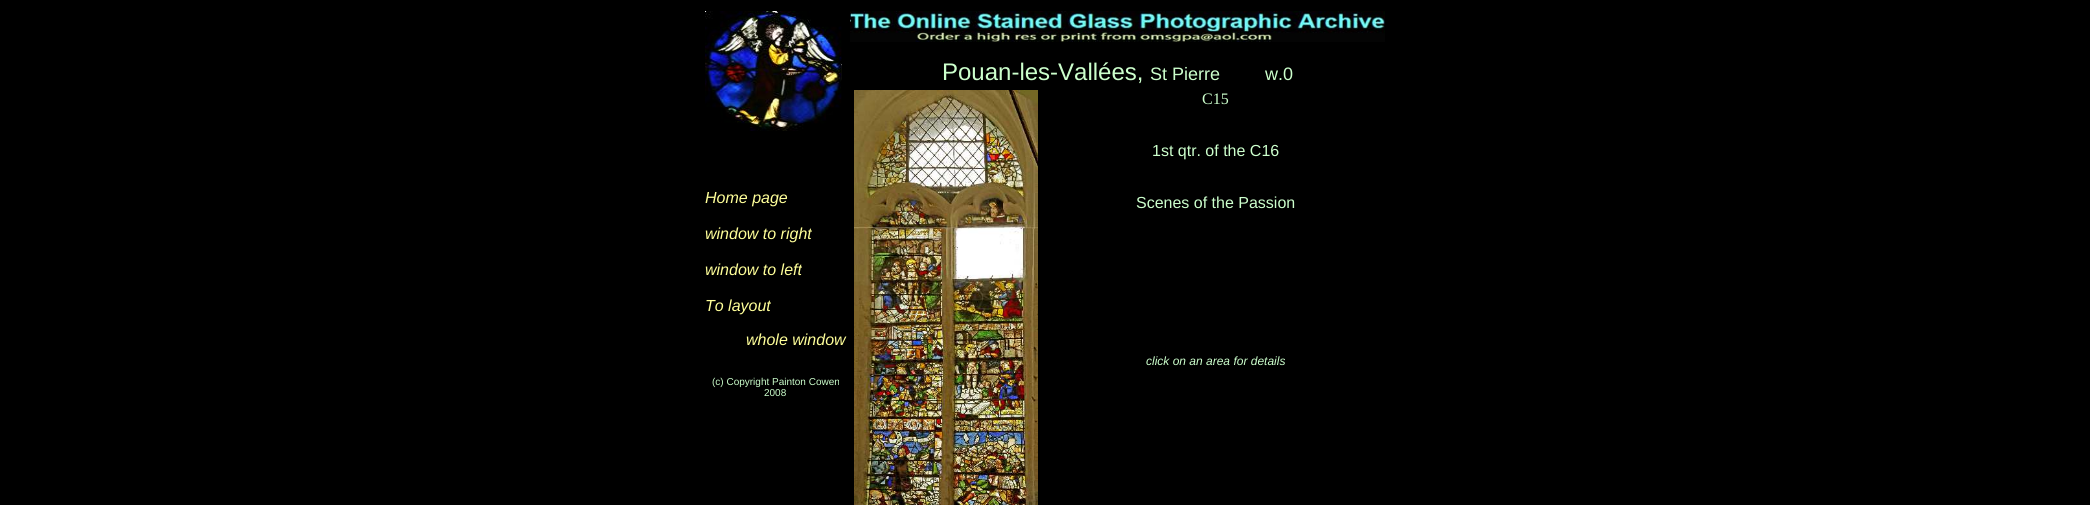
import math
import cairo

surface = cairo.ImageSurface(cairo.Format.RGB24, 2090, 505)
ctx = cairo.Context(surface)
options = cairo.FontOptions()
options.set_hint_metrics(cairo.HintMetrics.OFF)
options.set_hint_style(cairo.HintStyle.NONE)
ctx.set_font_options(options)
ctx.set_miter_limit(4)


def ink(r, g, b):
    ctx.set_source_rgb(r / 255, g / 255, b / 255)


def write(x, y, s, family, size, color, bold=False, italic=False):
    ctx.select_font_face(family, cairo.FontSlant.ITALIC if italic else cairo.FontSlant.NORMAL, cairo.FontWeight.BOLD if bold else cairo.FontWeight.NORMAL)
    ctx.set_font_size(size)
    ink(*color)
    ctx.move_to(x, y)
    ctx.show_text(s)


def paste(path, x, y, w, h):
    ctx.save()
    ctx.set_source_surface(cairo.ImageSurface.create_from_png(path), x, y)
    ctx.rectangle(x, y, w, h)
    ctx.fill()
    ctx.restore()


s1 = dict(family="Liberation Sans", size=24, color=(204, 255, 204))
s2 = dict(family="Liberation Sans", size=18, color=(204, 255, 204))
s3 = dict(family="Liberation Sans", size=16, color=(255, 255, 153), italic=True)
s4 = dict(family="Liberation Sans", size=10, color=(204, 255, 204))
s5 = dict(family="Liberation Serif", size=16, color=(204, 255, 204))
s6 = dict(family="Liberation Sans", size=16, color=(204, 255, 204))
s7 = dict(family="Liberation Sans", size=12, color=(204, 255, 204), italic=True)

ink(0, 0, 0)
ctx.paint()
paste("pic1.png", 850, 11, 535, 31)
write(942, 80, "Pouan-les-Vallées,", **s1)
write(1150, 80, "St Pierre", **s2)
write(1265, 80, "w.0", **s2)
paste("pic2.png", 705, 11, 137, 120)
write(705, 203, "Home page", **s3)
write(705, 239, "window to right", **s3)
write(705, 275, "window to left", **s3)
write(705, 311, "To layout", **s3)
write(746, 345, "whole window", **s3)
write(712, 385, "(c) Copyright Painton Cowen", **s4)
write(764, 396, "2008", **s4)
paste("pic3.png", 854, 90, 184, 415)
write(1202, 104, "C15", **s5)
write(1152, 156, "1st qtr. of the C16", **s6)
write(1136, 208, "Scenes of the Passion", **s6)
write(1146, 365, "click on an area for details", **s7)
surface.write_to_png("screenshot.png")
